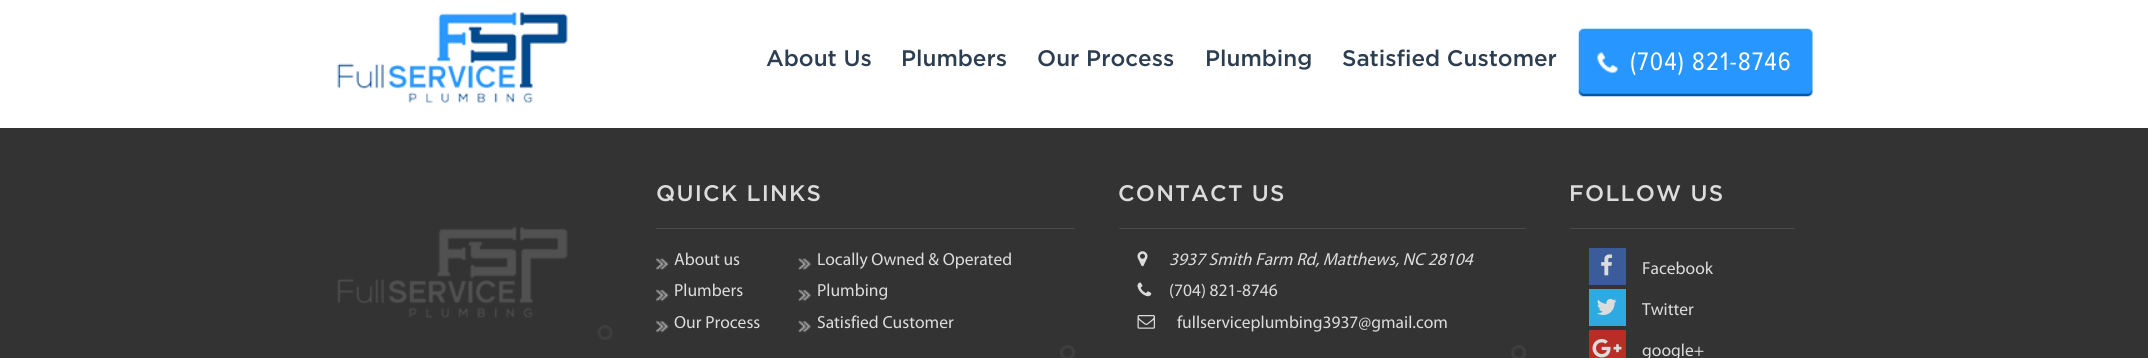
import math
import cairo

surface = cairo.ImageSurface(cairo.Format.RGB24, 2148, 358)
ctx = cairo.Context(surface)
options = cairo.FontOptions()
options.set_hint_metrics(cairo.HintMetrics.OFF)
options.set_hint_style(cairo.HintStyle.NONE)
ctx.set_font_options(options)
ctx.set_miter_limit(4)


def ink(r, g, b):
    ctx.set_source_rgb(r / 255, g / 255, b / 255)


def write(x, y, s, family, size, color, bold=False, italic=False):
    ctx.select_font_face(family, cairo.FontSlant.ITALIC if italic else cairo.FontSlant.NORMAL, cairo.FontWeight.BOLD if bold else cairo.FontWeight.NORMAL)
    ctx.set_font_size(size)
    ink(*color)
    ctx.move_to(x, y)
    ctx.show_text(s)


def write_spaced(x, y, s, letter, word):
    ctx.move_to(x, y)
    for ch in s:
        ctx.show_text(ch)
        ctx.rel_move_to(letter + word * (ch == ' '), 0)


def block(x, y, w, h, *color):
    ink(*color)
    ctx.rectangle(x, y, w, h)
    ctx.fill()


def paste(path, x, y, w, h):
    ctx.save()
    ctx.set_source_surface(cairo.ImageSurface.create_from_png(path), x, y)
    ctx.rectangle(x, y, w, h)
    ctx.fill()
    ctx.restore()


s1 = dict(family="Gotham Medium", size=22.5, color=(44, 62, 80))
s2 = dict(family="Myriad", size=17.5, color=(220, 220, 220))
s3 = dict(family="Myriad", size=17.5, color=(220, 220, 220), italic=True)

ink(255, 255, 255)
ctx.paint()
paste("pic1.png", 337, 12, 231, 91)
write(766, 66, "About Us", **s1)
write(901, 66, "Plumbers", **s1)
write(1037, 66, "Our Process", **s1)
write(1205, 66, "Plumbing", **s1)
write(1342, 66, "Satisfied Customer", **s1)
paste("pic2.png", 1578, 28, 235, 69)
paste("pic3.png", 1597, 52, 21, 22)
paste("pic4.png", 1631, 52, 159, 24)
block(0, 128, 2148, 230, 51, 51, 51)
paste("pic5.png", 597, 325, 16, 15)
paste("pic6.png", 337, 227, 231, 91)
paste("pic7.png", 1060, 345, 15, 13)
block(656, 228, 419, 1, 73, 73, 73)
ink(220, 220, 220)
write_spaced(656, 201, "QUICK LINKS", 1.25, 0)
paste("pic8.png", 656, 258, 13, 12)
write(674, 265, "About us", **s2)
paste("pic9.png", 656, 289, 13, 13)
write(674, 296, "Plumbers", **s2)
paste("pic10.png", 656, 320, 13, 13)
write(674, 328, "Our Process", **s2)
paste("pic11.png", 798, 258, 14, 12)
write(817, 265, "Locally Owned & Operated", **s2)
paste("pic12.png", 798, 289, 14, 13)
write(817, 296, "Plumbing", **s2)
paste("pic13.png", 798, 320, 14, 13)
write(817, 328, "Satisfied Customer", **s2)
paste("pic14.png", 1511, 345, 15, 13)
block(1119, 228, 407, 1, 73, 73, 73)
ctx.select_font_face("Gotham Medium")
ctx.set_font_size(22.5)
ink(220, 220, 220)
write_spaced(1118, 201, "CONTACT US", 1.25, 0)
paste("pic15.png", 1137, 251, 11, 16)
write(1169, 265, "3937 Smith Farm Rd, Matthews, NC 28104", **s3)
paste("pic16.png", 1137, 282, 15, 15)
write(1169, 296, "(704) 821-8746", **s2)
paste("pic17.png", 1137, 315, 18, 14)
write(1177, 328, "fullserviceplumbing3937@gmail.com", **s2)
block(1570, 228, 225, 1, 73, 73, 73)
ctx.select_font_face("Gotham Medium")
ctx.set_font_size(22.5)
ink(220, 220, 220)
write_spaced(1569, 201, "FOLLOW US", 1.25, 0)
block(1589, 248, 37, 37, 60, 91, 155)
paste("pic18.png", 1601, 254, 12, 22)
write(1642, 274, "Facebook", **s2)
block(1589, 289, 37, 37, 44, 170, 225)
paste("pic19.png", 1597, 298, 20, 17)
write(1642, 315, "Twitter", **s2)
block(1589, 330, 37, 28, 186, 45, 38)
paste("pic20.png", 1592, 339, 30, 19)
write(1642, 356, "google+", **s2)
surface.write_to_png("screenshot.png")
